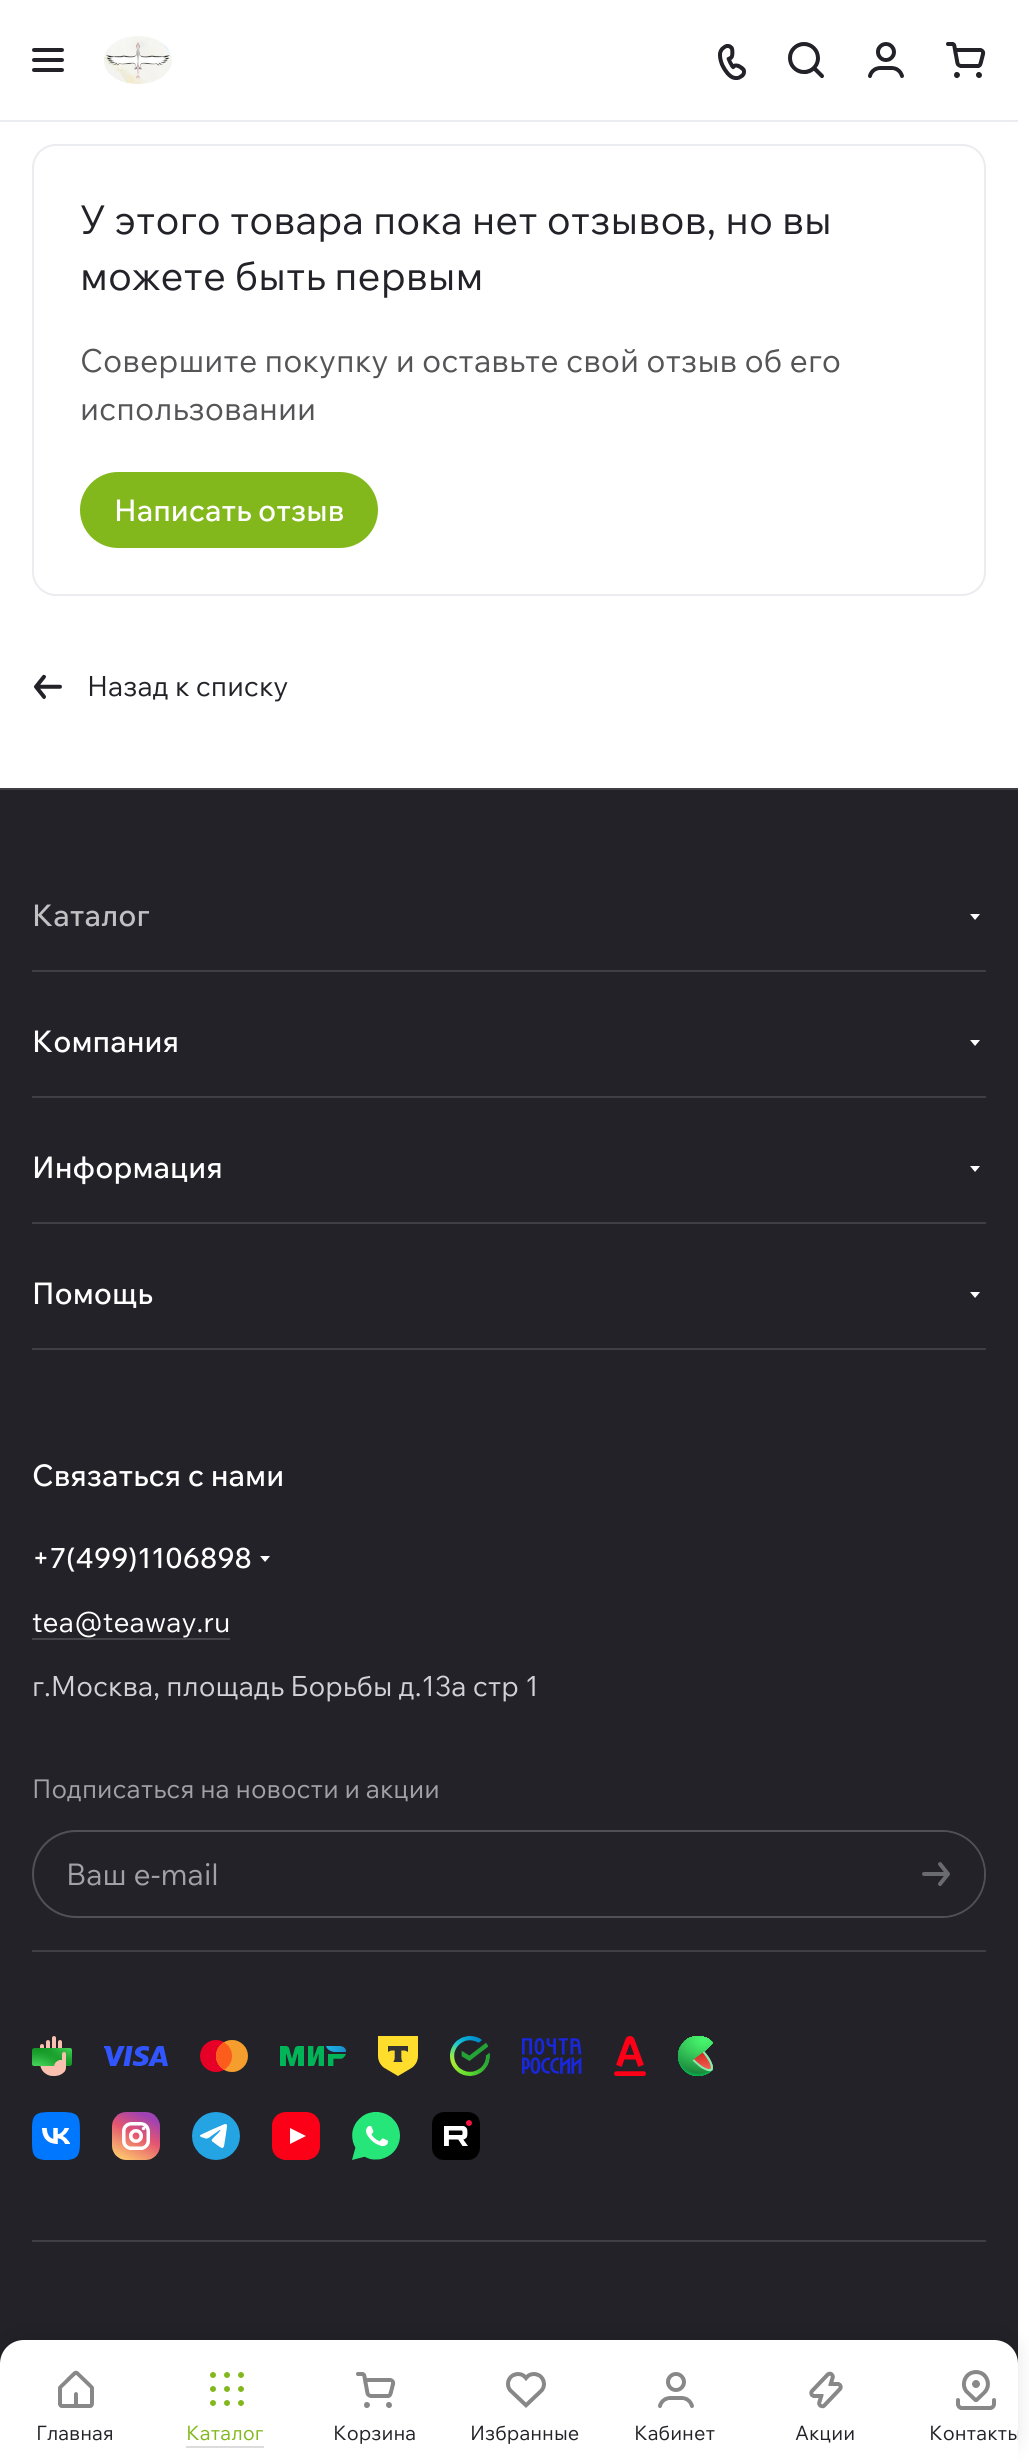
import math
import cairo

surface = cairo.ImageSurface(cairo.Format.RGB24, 1029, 2462)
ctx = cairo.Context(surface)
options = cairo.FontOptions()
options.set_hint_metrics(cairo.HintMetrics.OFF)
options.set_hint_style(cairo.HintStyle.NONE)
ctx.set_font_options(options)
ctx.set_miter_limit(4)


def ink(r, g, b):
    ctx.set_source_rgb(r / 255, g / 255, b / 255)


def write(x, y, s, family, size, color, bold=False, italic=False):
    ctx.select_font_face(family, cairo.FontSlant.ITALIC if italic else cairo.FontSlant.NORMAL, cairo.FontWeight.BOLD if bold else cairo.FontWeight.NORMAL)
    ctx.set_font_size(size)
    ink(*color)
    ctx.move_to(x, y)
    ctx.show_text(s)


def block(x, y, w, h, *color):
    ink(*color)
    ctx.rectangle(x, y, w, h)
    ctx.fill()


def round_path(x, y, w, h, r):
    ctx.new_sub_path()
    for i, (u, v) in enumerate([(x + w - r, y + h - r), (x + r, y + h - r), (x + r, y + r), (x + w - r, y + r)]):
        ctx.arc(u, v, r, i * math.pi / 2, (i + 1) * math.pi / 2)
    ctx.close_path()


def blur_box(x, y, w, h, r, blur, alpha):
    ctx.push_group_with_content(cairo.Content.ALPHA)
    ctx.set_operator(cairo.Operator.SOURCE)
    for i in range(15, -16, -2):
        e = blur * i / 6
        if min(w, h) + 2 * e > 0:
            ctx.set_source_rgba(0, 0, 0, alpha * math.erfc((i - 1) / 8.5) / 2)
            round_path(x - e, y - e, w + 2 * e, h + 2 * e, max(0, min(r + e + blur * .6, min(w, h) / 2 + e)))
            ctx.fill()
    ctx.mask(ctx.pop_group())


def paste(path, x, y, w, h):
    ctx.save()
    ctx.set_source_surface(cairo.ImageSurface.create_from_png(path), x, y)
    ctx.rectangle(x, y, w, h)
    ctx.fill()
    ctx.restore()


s1 = dict(family="Wix Madefor Text", size=40, color=(34, 34, 40))
s2 = dict(family="Wix Madefor Text", size=32, color=(85, 85, 88))
s3 = dict(family="Wix Madefor Text Medium", size=30, color=(255, 255, 255))
s4 = dict(family="Wix Madefor Text", size=28, color=(34, 34, 40))
s5 = dict(family="Wix Madefor Text Medium", size=30, color=(193, 193, 195))
s6 = dict(family="Wix Madefor Text Medium", size=28, color=(255, 255, 255))
s7 = dict(family="Wix Madefor Text", size=28, color=(255, 255, 255))
s8 = dict(family="Wix Madefor Text", size=28, color=(209, 209, 215))
s9 = dict(family="Wix Madefor Text", size=26, color=(161, 161, 167))
s10 = dict(family="Wix Madefor Text", size=30, color=(161, 161, 167))
s11 = dict(family="Wix Madefor Text", size=20, color=(34, 34, 40))
s12 = dict(family="Wix Madefor Text", size=20, color=(131, 184, 29))

ink(255, 255, 255)
ctx.paint()
block(0, 120, 1018, 2, 235, 236, 239)
paste("pic1.png", 32, 48, 32, 24)
paste("pic2.png", 104, 36, 68, 48)
paste("pic3.png", 718, 44, 28, 36)
paste("pic4.png", 788, 42, 36, 36)
paste("pic5.png", 868, 42, 36, 36)
paste("pic6.png", 946, 42, 40, 36)
round_path(33, 145, 952, 450, 23)
ctx.stroke()
write(80, 234, "У этого товара пока нет отзывов, но вы", **s1)
write(80, 290, "можете быть первым", **s1)
write(80, 372, "Совершите покупку и оставьте свой отзыв об его", **s2)
write(80, 420, "использовании", **s2)
ink(131, 184, 29)
round_path(81, 473, 296, 74, 37)
ctx.fill_preserve()
ctx.stroke()
write(114, 521, "Написать отзыв", **s3)
paste("pic7.png", 33, 674, 29, 25)
write(87, 696, "Назад к списку", **s4)
block(0, 790, 1018, 1574, 34, 34, 40)
block(0, 788, 1018, 2, 63, 63, 69)
block(32, 970, 954, 2, 63, 63, 69)
write(32, 926, "Каталог", **s5)
paste("pic8.png", 970, 914, 10, 6)
block(32, 1096, 954, 2, 63, 63, 69)
write(32, 1052, "Компания", **s3)
paste("pic8.png", 970, 1040, 10, 6)
block(32, 1222, 954, 2, 63, 63, 69)
write(32, 1178, "Информация", **s3)
paste("pic8.png", 970, 1166, 10, 6)
block(32, 1348, 954, 2, 63, 63, 69)
write(32, 1304, "Помощь", **s3)
paste("pic8.png", 970, 1292, 10, 6)
block(32, 1950, 954, 2, 63, 63, 69)
write(32, 1486, "Связаться с нами", **s3)
write(32, 1568, "+7(499)1106898", **s6)
paste("pic8.png", 260, 1556, 10, 6)
write(32, 1632, "tea@teaway.ru", **s7)
block(32, 1638, 198, 2, 69, 69, 74)
write(32, 1696, "г.Москва, площадь Борьбы д.13а стр 1", **s8)
write(32, 1798, "Подписаться на новости и акции", **s9)
round_path(33, 1831, 952, 86, 43)
ink(80, 80, 86)
ctx.stroke()
write(66, 1885, "Ваш e-mail", **s10)
ink(34, 34, 40)
round_path(888, 1832, 96, 84, 42)
ctx.fill()
paste("pic9.png", 922, 1862, 28, 24)
paste("pic10.png", 32, 2036, 40, 40)
paste("pic11.png", 104, 2046, 64, 20)
paste("pic12.png", 200, 2040, 48, 32)
paste("pic13.png", 280, 2046, 66, 20)
paste("pic14.png", 378, 2036, 40, 40)
paste("pic15.png", 450, 2036, 40, 40)
paste("pic16.png", 522, 2038, 60, 36)
paste("pic17.png", 614, 2036, 32, 40)
paste("pic18.png", 678, 2036, 35, 40)
paste("pic19.png", 32, 2112, 48, 48)
paste("pic20.png", 112, 2112, 48, 48)
paste("pic21.png", 192, 2112, 48, 48)
paste("pic22.png", 272, 2112, 48, 48)
paste("pic23.png", 352, 2112, 48, 48)
paste("pic24.png", 432, 2112, 48, 48)
block(32, 2240, 954, 2, 63, 63, 69)
ink(0, 0, 0)
blur_box(0, 2334, 1018, 122, 24, 10, 0.1)
ink(255, 255, 255)
ctx.new_path()
ctx.move_to(24, 2340)
ctx.line_to(994, 2340)
ctx.curve_to(1007.5, 2340, 1018, 2350.5, 1018, 2364)
ctx.line_to(1018, 2462)
ctx.line_to(0, 2462)
ctx.line_to(0, 2364)
ctx.curve_to(0, 2350.5, 10.5, 2340, 24, 2340)
ctx.close_path()
ctx.fill()
paste("pic25.png", 58, 2370, 36, 38)
write(36, 2440, "Главная", **s11)
paste("pic26.png", 210, 2372, 34, 34)
write(186, 2440, "Каталог", **s12)
block(186, 2446, 78, 2, 220, 220, 221)
paste("pic27.png", 356, 2372, 40, 36)
write(333, 2440, "Корзина", **s11)
paste("pic28.png", 506, 2372, 40, 36)
write(470, 2440, "Избранные", **s11)
paste("pic29.png", 658, 2372, 36, 36)
write(634, 2440, "Кабинет", **s11)
paste("pic30.png", 809, 2371, 34, 38)
write(795, 2440, "Акции", **s11)
paste("pic31.png", 956, 2370, 40, 40)
ctx.save()
ctx.rectangle(906, 2420, 112, 28)
ctx.clip()
write(929, 2440, "Контакты", **s11)
ctx.restore()
surface.write_to_png("screenshot.png")
